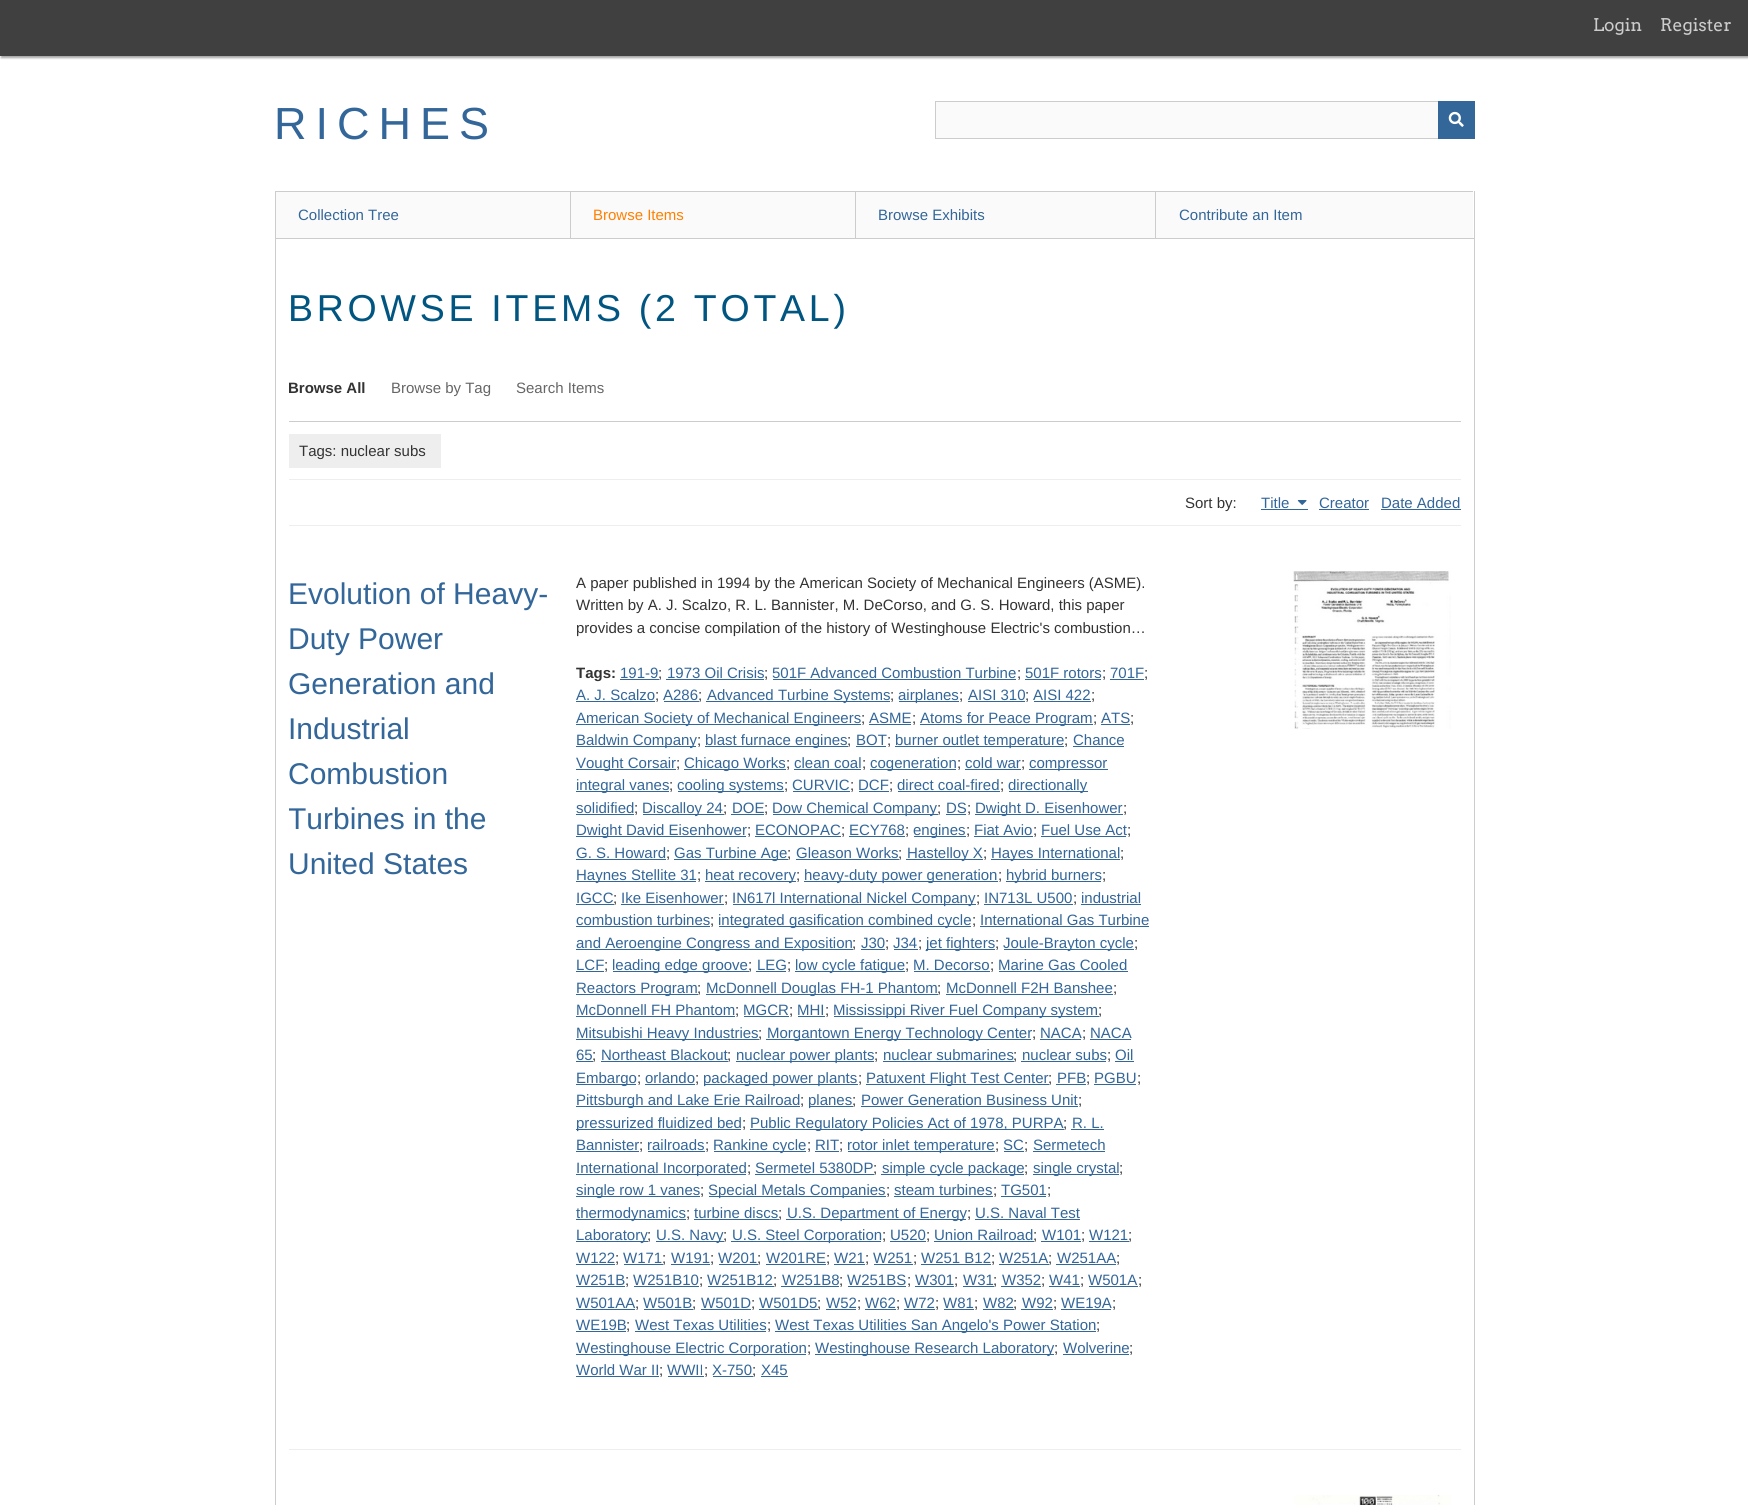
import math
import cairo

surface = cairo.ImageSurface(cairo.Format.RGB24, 1748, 1505)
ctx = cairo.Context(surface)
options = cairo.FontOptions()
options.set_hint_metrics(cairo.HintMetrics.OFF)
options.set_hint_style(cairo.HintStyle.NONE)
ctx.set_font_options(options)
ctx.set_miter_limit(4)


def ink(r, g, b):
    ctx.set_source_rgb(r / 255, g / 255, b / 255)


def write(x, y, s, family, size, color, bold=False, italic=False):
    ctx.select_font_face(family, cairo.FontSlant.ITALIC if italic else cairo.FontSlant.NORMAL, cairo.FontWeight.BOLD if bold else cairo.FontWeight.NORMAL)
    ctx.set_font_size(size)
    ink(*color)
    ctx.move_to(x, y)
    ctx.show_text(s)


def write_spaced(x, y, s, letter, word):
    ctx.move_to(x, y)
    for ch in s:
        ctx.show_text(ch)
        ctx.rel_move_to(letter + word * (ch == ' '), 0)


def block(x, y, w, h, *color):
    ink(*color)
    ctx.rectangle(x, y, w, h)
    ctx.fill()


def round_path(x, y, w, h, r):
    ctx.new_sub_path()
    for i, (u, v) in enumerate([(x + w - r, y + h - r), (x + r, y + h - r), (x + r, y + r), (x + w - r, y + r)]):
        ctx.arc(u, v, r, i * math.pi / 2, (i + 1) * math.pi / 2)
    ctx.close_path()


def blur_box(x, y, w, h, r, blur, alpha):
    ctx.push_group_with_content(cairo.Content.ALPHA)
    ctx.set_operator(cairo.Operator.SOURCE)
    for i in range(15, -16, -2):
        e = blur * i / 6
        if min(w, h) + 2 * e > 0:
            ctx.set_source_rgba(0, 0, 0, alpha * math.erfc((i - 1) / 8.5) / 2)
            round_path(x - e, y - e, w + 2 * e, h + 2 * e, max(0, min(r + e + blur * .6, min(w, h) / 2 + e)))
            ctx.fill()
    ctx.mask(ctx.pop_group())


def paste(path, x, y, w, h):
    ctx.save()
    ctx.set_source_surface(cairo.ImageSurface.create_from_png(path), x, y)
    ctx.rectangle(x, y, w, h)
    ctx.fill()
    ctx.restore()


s1 = dict(family="Arvo", size=17.5, color=(204, 204, 204))
s2 = dict(family="Liberation Sans", size=15, color=(51, 102, 153))
s3 = dict(family="Liberation Sans", size=15, color=(255, 128, 0))
s4 = dict(family="Liberation Sans", size=15, color=(51, 51, 51), bold=True)
s5 = dict(family="Liberation Sans", size=15, color=(102, 102, 102))
s6 = dict(family="Liberation Sans", size=15, color=(51, 51, 51))
s7 = dict(family="Liberation Sans", size=30, color=(51, 102, 153))

ink(255, 255, 255)
ctx.paint()
ink(0, 0, 0)
blur_box(1, 1, 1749, 57, 0, 1, 0.35)
block(0, 0, 1748, 56, 64, 64, 64)
write(1593, 31, "Login", **s1)
write(1660, 31, "Register", **s1)
ctx.select_font_face("Liberation Sans")
ctx.set_font_size(45)
ink(51, 102, 153)
write_spaced(274, 139, "RICHES", 9, 0)
block(936, 102, 502, 36, 250, 250, 250)
ctx.rectangle(935.5, 101.5, 539, 37)
ink(204, 204, 204)
ctx.set_line_width(1)
ctx.stroke()
block(1438, 101, 37, 38, 51, 102, 153)
paste("pic1.png", 1448, 111, 16, 16)
block(1474, 191, 1, 47, 204, 204, 204)
block(276, 192, 294, 46, 250, 250, 250)
block(275, 191, 295, 1, 204, 204, 204)
block(275, 191, 1, 47, 204, 204, 204)
write(298, 220, "Collection Tree", **s2)
block(571, 192, 284, 46, 250, 250, 250)
block(570, 191, 903, 1, 204, 204, 204)
block(570, 191, 1, 47, 204, 204, 204)
write(593, 220, "Browse Items", **s3)
block(856, 192, 299, 46, 250, 250, 250)
block(855, 191, 1, 47, 204, 204, 204)
write(878, 220, "Browse Exhibits", **s2)
block(1156, 192, 317, 46, 250, 250, 250)
block(1155, 191, 1, 47, 204, 204, 204)
write(1179, 220, "Contribute an Item", **s2)
ctx.rectangle(275.5, 238.5, 1199, 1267)
ink(204, 204, 204)
ctx.stroke()
ctx.set_font_size(37.5)
ink(1, 85, 129)
write_spaced(288, 321, "BROWSE ITEMS (2 TOTAL)", 3.75, 0)
block(289, 421, 1172, 1, 204, 204, 204)
write(288, 393, "Browse All", **s4)
write(391, 393, "Browse by Tag", **s5)
write(516, 393, "Search Items", **s5)
block(289, 479, 1172, 1, 238, 238, 238)
block(289, 434, 152, 34, 238, 238, 238)
write(299, 456, "Tags: nuclear subs", **s6)
write(1185, 508, "Sort by:", **s6)
write(1261, 508, "Title", **s2)
block(1261, 509, 47, 1, 51, 102, 153)
paste("pic2.png", 1297, 500, 10, 5)
write(1319, 508, "Creator", **s2)
block(1319, 509, 50, 1, 51, 102, 153)
write(1381, 508, "Date Added", **s2)
block(1381, 509, 80, 1, 51, 102, 153)
block(289, 525, 1172, 1, 238, 238, 238)
block(289, 1449, 1172, 1, 238, 238, 238)
write(288, 604, "Evolution of Heavy-", **s7)
write(288, 649, "Duty Power", **s7)
write(288, 694, "Generation and", **s7)
write(288, 739, "Industrial", **s7)
write(288, 784, "Combustion", **s7)
ctx.save()
ctx.rectangle(289, 526, 1172, 923)
ctx.clip()
write(288, 829, "Turbines in the", **s7)
ctx.restore()
write(288, 874, "United States", **s7)
write(576, 588, "A paper published in 1994 by the American Society of Mechanical Engineers (ASME).", **s6)
write(576, 610, "Written by A. J. Scalzo, R. L. Bannister, M. DeCorso, and G. S. Howard, this paper", **s6)
write(576, 633, "provides a concise compilation of the history of Westinghouse Electric's combustion…", **s6)
paste("pic3.png", 1293, 571, 158, 158)
write(576, 678, "Tags:", **s4)
write(620, 678, "191-9", **s2)
block(620, 679, 39, 1, 51, 102, 153)
write(658, 678, ";", **s6)
write(667, 678, "1973 Oil Crisis", **s2)
block(666, 679, 98, 1, 51, 102, 153)
write(764, 678, ";", **s6)
write(772, 678, "501F Advanced Combustion Turbine", **s2)
block(773, 679, 243, 1, 51, 102, 153)
write(1017, 678, ";", **s6)
write(1025, 678, "501F rotors", **s2)
block(1025, 679, 76, 1, 51, 102, 153)
write(1102, 678, ";", **s6)
write(1110, 678, "701F", **s2)
block(1110, 679, 34, 1, 51, 102, 153)
write(1144, 678, ";", **s6)
write(576, 700, "A. J. Scalzo", **s2)
block(576, 701, 79, 1, 51, 102, 153)
write(655, 700, ";", **s6)
write(663, 700, "A286", **s2)
block(664, 701, 35, 1, 51, 102, 153)
write(698, 700, ";", **s6)
block(706, 701, 184, 1, 51, 102, 153)
write(707, 700, "Advanced Turbine Systems", **s2)
write(890, 700, ";", **s6)
block(899, 701, 60, 1, 51, 102, 153)
write(898, 700, "airplanes", **s2)
write(959, 700, ";", **s6)
write(968, 700, "AISI 310", **s2)
block(968, 701, 57, 1, 51, 102, 153)
write(1025, 700, ";", **s6)
write(1033, 700, "AISI 422", **s2)
block(1034, 701, 57, 1, 51, 102, 153)
write(1091, 700, ";", **s6)
block(576, 724, 285, 1, 51, 102, 153)
write(576, 723, "American Society of Mechanical Engineers", **s2)
write(861, 723, ";", **s6)
write(869, 723, "ASME", **s2)
block(869, 724, 42, 1, 51, 102, 153)
write(912, 723, ";", **s6)
block(920, 724, 173, 1, 51, 102, 153)
write(920, 723, "Atoms for Peace Program", **s2)
write(1093, 723, ";", **s6)
write(1101, 723, "ATS", **s2)
block(1101, 724, 29, 1, 51, 102, 153)
write(1130, 723, ";", **s6)
block(576, 746, 120, 1, 51, 102, 153)
write(576, 745, "Baldwin Company", **s2)
write(697, 745, ";", **s6)
block(705, 746, 143, 1, 51, 102, 153)
write(705, 745, "blast furnace engines", **s2)
write(847, 745, ";", **s6)
write(856, 745, "BOT", **s2)
block(856, 746, 30, 1, 51, 102, 153)
write(887, 745, ";", **s6)
block(895, 746, 169, 1, 51, 102, 153)
write(895, 745, "burner outlet temperature", **s2)
write(1064, 745, ";", **s6)
write(1073, 745, "Chance", **s2)
block(1073, 746, 51, 1, 51, 102, 153)
block(576, 769, 100, 1, 51, 102, 153)
write(576, 768, "Vought Corsair", **s2)
write(676, 768, ";", **s6)
block(684, 769, 102, 1, 51, 102, 153)
write(684, 768, "Chicago Works", **s2)
write(786, 768, ";", **s6)
write(794, 768, "clean coal", **s2)
block(794, 769, 67, 1, 51, 102, 153)
write(862, 768, ";", **s6)
block(870, 769, 86, 1, 51, 102, 153)
write(870, 768, "cogeneration", **s2)
write(957, 768, ";", **s6)
write(965, 768, "cold war", **s2)
block(965, 769, 56, 1, 51, 102, 153)
write(1021, 768, ";", **s6)
block(1029, 769, 79, 1, 51, 102, 153)
write(1029, 768, "compressor", **s2)
block(576, 791, 93, 1, 51, 102, 153)
write(576, 790, "integral vanes", **s2)
write(669, 790, ";", **s6)
block(678, 791, 106, 1, 51, 102, 153)
write(677, 790, "cooling systems", **s2)
write(784, 790, ";", **s6)
write(792, 790, "CURVIC", **s2)
block(793, 791, 57, 1, 51, 102, 153)
write(850, 790, ";", **s6)
write(858, 790, "DCF", **s2)
block(859, 791, 30, 1, 51, 102, 153)
write(889, 790, ";", **s6)
write(897, 790, "direct coal-fired", **s2)
block(898, 791, 102, 1, 51, 102, 153)
write(1000, 790, ";", **s6)
block(1009, 791, 79, 1, 51, 102, 153)
write(1008, 790, "directionally", **s2)
write(576, 813, "solidified", **s2)
block(576, 814, 58, 1, 51, 102, 153)
write(634, 813, ";", **s6)
block(643, 814, 81, 1, 51, 102, 153)
write(642, 813, "Discalloy 24", **s2)
write(723, 813, ";", **s6)
write(732, 813, "DOE", **s2)
block(731, 814, 33, 1, 51, 102, 153)
write(764, 813, ";", **s6)
block(773, 814, 165, 1, 51, 102, 153)
write(772, 813, "Dow Chemical Company", **s2)
write(937, 813, ";", **s6)
write(946, 813, "DS", **s2)
block(946, 814, 20, 1, 51, 102, 153)
write(967, 813, ";", **s6)
block(975, 814, 148, 1, 51, 102, 153)
write(975, 813, "Dwight D. Eisenhower", **s2)
write(1123, 813, ";", **s6)
block(576, 836, 170, 1, 51, 102, 153)
write(576, 835, "Dwight David Eisenhower", **s2)
write(747, 835, ";", **s6)
write(755, 835, "ECONOPAC", **s2)
block(755, 836, 86, 1, 51, 102, 153)
write(841, 835, ";", **s6)
write(849, 835, "ECY768", **s2)
block(849, 836, 56, 1, 51, 102, 153)
write(905, 835, ";", **s6)
block(914, 836, 52, 1, 51, 102, 153)
write(913, 835, "engines", **s2)
write(966, 835, ";", **s6)
write(974, 835, "Fiat Avio", **s2)
block(974, 836, 59, 1, 51, 102, 153)
write(1033, 835, ";", **s6)
write(1041, 835, "Fuel Use Act", **s2)
block(1041, 836, 85, 1, 51, 102, 153)
write(1127, 835, ";", **s6)
write(576, 858, "G. S. Howard", **s2)
block(576, 859, 90, 1, 51, 102, 153)
write(666, 858, ";", **s6)
block(674, 859, 114, 1, 51, 102, 153)
write(674, 858, "Gas Turbine Age", **s2)
write(787, 858, ";", **s6)
write(796, 858, "Gleason Works", **s2)
block(796, 859, 103, 1, 51, 102, 153)
write(898, 858, ";", **s6)
block(906, 859, 77, 1, 51, 102, 153)
write(907, 858, "Hastelloy X", **s2)
write(983, 858, ";", **s6)
block(991, 859, 129, 1, 51, 102, 153)
write(991, 858, "Hayes International", **s2)
write(1120, 858, ";", **s6)
block(576, 881, 120, 1, 51, 102, 153)
write(576, 880, "Haynes Stellite 31", **s2)
write(697, 880, ";", **s6)
block(705, 881, 91, 1, 51, 102, 153)
write(705, 880, "heat recovery", **s2)
write(796, 880, ";", **s6)
block(804, 881, 194, 1, 51, 102, 153)
write(804, 880, "heavy-duty power generation", **s2)
write(998, 880, ";", **s6)
block(1006, 881, 95, 1, 51, 102, 153)
write(1006, 880, "hybrid burners", **s2)
write(1102, 880, ";", **s6)
write(576, 903, "IGCC", **s2)
block(576, 904, 38, 1, 51, 102, 153)
write(613, 903, ";", **s6)
write(621, 903, "Ike Eisenhower", **s2)
block(621, 904, 103, 1, 51, 102, 153)
write(724, 903, ";", **s6)
block(733, 904, 243, 1, 51, 102, 153)
write(732, 903, "IN617l International Nickel Company", **s2)
write(976, 903, ";", **s6)
write(984, 903, "IN713L U500", **s2)
block(984, 904, 89, 1, 51, 102, 153)
write(1073, 903, ";", **s6)
write(1081, 903, "industrial", **s2)
block(1081, 904, 60, 1, 51, 102, 153)
write(576, 925, "combustion turbines", **s2)
block(576, 926, 134, 1, 51, 102, 153)
write(710, 925, ";", **s6)
block(719, 926, 252, 1, 51, 102, 153)
write(718, 925, "integrated gasification combined cycle", **s2)
write(972, 925, ";", **s6)
write(980, 925, "International Gas Turbine", **s2)
block(980, 926, 169, 1, 51, 102, 153)
block(576, 949, 277, 1, 51, 102, 153)
write(576, 948, "and Aeroengine Congress and Exposition", **s2)
write(852, 948, ";", **s6)
write(861, 948, "J30", **s2)
block(861, 949, 24, 1, 51, 102, 153)
write(885, 948, ";", **s6)
write(893, 948, "J34", **s2)
block(894, 949, 24, 1, 51, 102, 153)
write(918, 948, ";", **s6)
block(926, 949, 69, 1, 51, 102, 153)
write(926, 948, "jet fighters", **s2)
write(995, 948, ";", **s6)
block(1004, 949, 130, 1, 51, 102, 153)
write(1003, 948, "Joule-Brayton cycle", **s2)
write(1134, 948, ";", **s6)
write(576, 970, "LCF", **s2)
block(576, 971, 28, 1, 51, 102, 153)
write(604, 970, ";", **s6)
block(613, 971, 136, 1, 51, 102, 153)
write(612, 970, "leading edge groove", **s2)
write(748, 970, ";", **s6)
write(757, 970, "LEG", **s2)
block(756, 971, 30, 1, 51, 102, 153)
write(787, 970, ";", **s6)
block(795, 971, 110, 1, 51, 102, 153)
write(795, 970, "low cycle fatigue", **s2)
write(905, 970, ";", **s6)
write(913, 970, "M. Decorso", **s2)
block(914, 971, 76, 1, 51, 102, 153)
write(990, 970, ";", **s6)
write(998, 970, "Marine Gas Cooled", **s2)
block(999, 971, 129, 1, 51, 102, 153)
block(576, 994, 122, 1, 51, 102, 153)
write(576, 993, "Reactors Program", **s2)
write(697, 993, ";", **s6)
block(706, 994, 232, 1, 51, 102, 153)
write(706, 993, "McDonnell Douglas FH-1 Phantom", **s2)
write(937, 993, ";", **s6)
write(946, 993, "McDonnell F2H Banshee", **s2)
block(946, 994, 167, 1, 51, 102, 153)
write(1113, 993, ";", **s6)
write(576, 1015, "McDonnell FH Phantom", **s2)
block(576, 1016, 159, 1, 51, 102, 153)
write(735, 1015, ";", **s6)
write(743, 1015, "MGCR", **s2)
block(744, 1016, 45, 1, 51, 102, 153)
write(789, 1015, ";", **s6)
write(797, 1015, "MHI", **s2)
block(798, 1016, 27, 1, 51, 102, 153)
write(825, 1015, ";", **s6)
block(834, 1016, 265, 1, 51, 102, 153)
write(833, 1015, "Mississippi River Fuel Company system", **s2)
write(1098, 1015, ";", **s6)
block(576, 1039, 183, 1, 51, 102, 153)
write(576, 1038, "Mitsubishi Heavy Industries", **s2)
write(758, 1038, ";", **s6)
block(766, 1039, 265, 1, 51, 102, 153)
write(767, 1038, "Morgantown Energy Technology Center", **s2)
write(1032, 1038, ";", **s6)
write(1040, 1038, "NACA", **s2)
block(1040, 1039, 41, 1, 51, 102, 153)
write(1082, 1038, ";", **s6)
write(1090, 1038, "NACA", **s2)
block(1090, 1039, 41, 1, 51, 102, 153)
write(576, 1060, "65", **s2)
block(576, 1061, 17, 1, 51, 102, 153)
write(592, 1060, ";", **s6)
write(601, 1060, "Northeast Blackout", **s2)
block(601, 1061, 127, 1, 51, 102, 153)
write(727, 1060, ";", **s6)
block(736, 1061, 138, 1, 51, 102, 153)
write(736, 1060, "nuclear power plants", **s2)
write(874, 1060, ";", **s6)
write(883, 1060, "nuclear submarines", **s2)
block(883, 1061, 131, 1, 51, 102, 153)
write(1013, 1060, ";", **s6)
write(1022, 1060, "nuclear subs", **s2)
block(1021, 1061, 85, 1, 51, 102, 153)
write(1107, 1060, ";", **s6)
write(1115, 1060, "Oil", **s2)
block(1115, 1061, 19, 1, 51, 102, 153)
block(576, 1084, 60, 1, 51, 102, 153)
write(576, 1083, "Embargo", **s2)
write(637, 1083, ";", **s6)
write(645, 1083, "orlando", **s2)
block(645, 1084, 50, 1, 51, 102, 153)
write(695, 1083, ";", **s6)
block(704, 1084, 154, 1, 51, 102, 153)
write(703, 1083, "packaged power plants", **s2)
write(858, 1083, ";", **s6)
block(866, 1084, 183, 1, 51, 102, 153)
write(866, 1083, "Patuxent Flight Test Center", **s2)
write(1048, 1083, ";", **s6)
write(1057, 1083, "PFB", **s2)
block(1056, 1084, 30, 1, 51, 102, 153)
write(1086, 1083, ";", **s6)
write(1094, 1083, "PGBU", **s2)
block(1094, 1084, 42, 1, 51, 102, 153)
write(1137, 1083, ";", **s6)
block(576, 1106, 224, 1, 51, 102, 153)
write(576, 1105, "Pittsburgh and Lake Erie Railroad", **s2)
write(800, 1105, ";", **s6)
block(809, 1106, 44, 1, 51, 102, 153)
write(808, 1105, "planes", **s2)
write(852, 1105, ";", **s6)
write(861, 1105, "Power Generation Business Unit", **s2)
block(861, 1106, 217, 1, 51, 102, 153)
write(1078, 1105, ";", **s6)
block(576, 1129, 165, 1, 51, 102, 153)
write(576, 1128, "pressurized fluidized bed", **s2)
write(742, 1128, ";", **s6)
block(750, 1129, 314, 1, 51, 102, 153)
write(750, 1128, "Public Regulatory Policies Act of 1978, PURPA", **s2)
write(1063, 1128, ";", **s6)
write(1072, 1128, "R. L.", **s2)
block(1071, 1129, 33, 1, 51, 102, 153)
write(576, 1150, "Bannister", **s2)
block(576, 1151, 63, 1, 51, 102, 153)
write(639, 1150, ";", **s6)
write(647, 1150, "railroads", **s2)
block(648, 1151, 57, 1, 51, 102, 153)
write(705, 1150, ";", **s6)
block(714, 1151, 92, 1, 51, 102, 153)
write(713, 1150, "Rankine cycle", **s2)
write(807, 1150, ";", **s6)
write(815, 1150, "RIT", **s2)
block(815, 1151, 24, 1, 51, 102, 153)
write(839, 1150, ";", **s6)
block(848, 1151, 147, 1, 51, 102, 153)
write(847, 1150, "rotor inlet temperature", **s2)
write(995, 1150, ";", **s6)
write(1003, 1150, "SC", **s2)
block(1004, 1151, 20, 1, 51, 102, 153)
write(1024, 1150, ";", **s6)
write(1033, 1150, "Sermetech", **s2)
block(1033, 1151, 72, 1, 51, 102, 153)
block(576, 1174, 170, 1, 51, 102, 153)
write(576, 1173, "International Incorporated", **s2)
write(747, 1173, ";", **s6)
write(755, 1173, "Sermetel 5380DP", **s2)
block(755, 1174, 119, 1, 51, 102, 153)
write(873, 1173, ";", **s6)
block(881, 1174, 143, 1, 51, 102, 153)
write(882, 1173, "simple cycle package", **s2)
write(1024, 1173, ";", **s6)
block(1033, 1174, 86, 1, 51, 102, 153)
write(1033, 1173, "single crystal", **s2)
write(1119, 1173, ";", **s6)
block(576, 1196, 124, 1, 51, 102, 153)
write(576, 1195, "single row 1 vanes", **s2)
write(700, 1195, ";", **s6)
block(709, 1196, 177, 1, 51, 102, 153)
write(708, 1195, "Special Metals Companies", **s2)
write(886, 1195, ";", **s6)
write(894, 1195, "steam turbines", **s2)
block(894, 1196, 99, 1, 51, 102, 153)
write(993, 1195, ";", **s6)
write(1001, 1195, "TG501", **s2)
block(1001, 1196, 45, 1, 51, 102, 153)
write(1047, 1195, ";", **s6)
block(576, 1219, 110, 1, 51, 102, 153)
write(576, 1218, "thermodynamics", **s2)
write(686, 1218, ";", **s6)
write(694, 1218, "turbine discs", **s2)
block(694, 1219, 85, 1, 51, 102, 153)
write(778, 1218, ";", **s6)
block(786, 1219, 180, 1, 51, 102, 153)
write(787, 1218, "U.S. Department of Energy", **s2)
write(967, 1218, ";", **s6)
write(975, 1218, "U.S. Naval Test", **s2)
block(975, 1219, 105, 1, 51, 102, 153)
block(576, 1241, 72, 1, 51, 102, 153)
write(576, 1240, "Laboratory", **s2)
write(647, 1240, ";", **s6)
block(656, 1241, 68, 1, 51, 102, 153)
write(656, 1240, "U.S. Navy", **s2)
write(723, 1240, ";", **s6)
block(731, 1241, 150, 1, 51, 102, 153)
write(732, 1240, "U.S. Steel Corporation", **s2)
write(882, 1240, ";", **s6)
write(890, 1240, "U520", **s2)
block(890, 1241, 36, 1, 51, 102, 153)
write(926, 1240, ";", **s6)
write(934, 1240, "Union Railroad", **s2)
block(934, 1241, 100, 1, 51, 102, 153)
write(1033, 1240, ";", **s6)
write(1042, 1240, "W101", **s2)
block(1041, 1241, 40, 1, 51, 102, 153)
write(1081, 1240, ";", **s6)
write(1089, 1240, "W121", **s2)
block(1089, 1241, 40, 1, 51, 102, 153)
write(1128, 1240, ";", **s6)
write(576, 1263, "W122", **s2)
block(576, 1264, 39, 1, 51, 102, 153)
write(615, 1263, ";", **s6)
write(623, 1263, "W171", **s2)
block(624, 1264, 39, 1, 51, 102, 153)
write(662, 1263, ";", **s6)
write(671, 1263, "W191", **s2)
block(671, 1264, 39, 1, 51, 102, 153)
write(710, 1263, ";", **s6)
write(718, 1263, "W201", **s2)
block(719, 1264, 39, 1, 51, 102, 153)
write(757, 1263, ";", **s6)
write(766, 1263, "W201RE", **s2)
block(766, 1264, 60, 1, 51, 102, 153)
write(826, 1263, ";", **s6)
write(834, 1263, "W21", **s2)
block(834, 1264, 31, 1, 51, 102, 153)
write(865, 1263, ";", **s6)
write(873, 1263, "W251", **s2)
block(874, 1264, 39, 1, 51, 102, 153)
write(913, 1263, ";", **s6)
write(921, 1263, "W251 B12", **s2)
block(921, 1264, 70, 1, 51, 102, 153)
write(991, 1263, ";", **s6)
write(999, 1263, "W251A", **s2)
block(999, 1264, 50, 1, 51, 102, 153)
write(1048, 1263, ";", **s6)
write(1057, 1263, "W251AA", **s2)
block(1056, 1264, 60, 1, 51, 102, 153)
write(1116, 1263, ";", **s6)
write(576, 1285, "W251B", **s2)
block(576, 1286, 49, 1, 51, 102, 153)
write(625, 1285, ";", **s6)
write(633, 1285, "W251B10", **s2)
block(634, 1286, 65, 1, 51, 102, 153)
write(699, 1285, ";", **s6)
write(707, 1285, "W251B12", **s2)
block(708, 1286, 66, 1, 51, 102, 153)
write(773, 1285, ";", **s6)
write(782, 1285, "W251B8", **s2)
block(781, 1286, 58, 1, 51, 102, 153)
write(839, 1285, ";", **s6)
write(847, 1285, "W251BS", **s2)
block(848, 1286, 58, 1, 51, 102, 153)
write(907, 1285, ";", **s6)
write(915, 1285, "W301", **s2)
block(915, 1286, 39, 1, 51, 102, 153)
write(954, 1285, ";", **s6)
write(963, 1285, "W31", **s2)
block(963, 1286, 31, 1, 51, 102, 153)
write(993, 1285, ";", **s6)
write(1002, 1285, "W352", **s2)
block(1001, 1286, 40, 1, 51, 102, 153)
write(1041, 1285, ";", **s6)
write(1049, 1285, "W41", **s2)
block(1049, 1286, 31, 1, 51, 102, 153)
write(1080, 1285, ";", **s6)
write(1088, 1285, "W501A", **s2)
block(1089, 1286, 49, 1, 51, 102, 153)
write(1138, 1285, ";", **s6)
write(576, 1308, "W501AA", **s2)
block(576, 1309, 59, 1, 51, 102, 153)
write(635, 1308, ";", **s6)
write(643, 1308, "W501B", **s2)
block(644, 1309, 49, 1, 51, 102, 153)
write(692, 1308, ";", **s6)
write(701, 1308, "W501D", **s2)
block(701, 1309, 50, 1, 51, 102, 153)
write(751, 1308, ";", **s6)
write(759, 1308, "W501D5", **s2)
block(759, 1309, 59, 1, 51, 102, 153)
write(817, 1308, ";", **s6)
write(826, 1308, "W52", **s2)
block(826, 1309, 30, 1, 51, 102, 153)
write(857, 1308, ";", **s6)
write(865, 1308, "W62", **s2)
block(865, 1309, 31, 1, 51, 102, 153)
write(896, 1308, ";", **s6)
write(904, 1308, "W72", **s2)
block(904, 1309, 31, 1, 51, 102, 153)
write(935, 1308, ";", **s6)
write(943, 1308, "W81", **s2)
block(944, 1309, 30, 1, 51, 102, 153)
write(974, 1308, ";", **s6)
write(983, 1308, "W82", **s2)
block(983, 1309, 31, 1, 51, 102, 153)
write(1013, 1308, ";", **s6)
write(1022, 1308, "W92", **s2)
block(1021, 1309, 32, 1, 51, 102, 153)
write(1053, 1308, ";", **s6)
write(1061, 1308, "WE19A", **s2)
block(1061, 1309, 50, 1, 51, 102, 153)
write(1112, 1308, ";", **s6)
write(576, 1330, "WE19B", **s2)
block(576, 1331, 50, 1, 51, 102, 153)
write(626, 1330, ";", **s6)
write(635, 1330, "West Texas Utilities", **s2)
block(635, 1331, 131, 1, 51, 102, 153)
write(767, 1330, ";", **s6)
block(775, 1331, 321, 1, 51, 102, 153)
write(775, 1330, "West Texas Utilities San Angelo's Power Station", **s2)
write(1096, 1330, ";", **s6)
block(576, 1354, 230, 1, 51, 102, 153)
write(576, 1353, "Westinghouse Electric Corporation", **s2)
write(807, 1353, ";", **s6)
block(815, 1354, 239, 1, 51, 102, 153)
write(815, 1353, "Westinghouse Research Laboratory", **s2)
write(1054, 1353, ";", **s6)
write(1063, 1353, "Wolverine", **s2)
block(1063, 1354, 66, 1, 51, 102, 153)
write(1129, 1353, ";", **s6)
write(576, 1375, "World War II", **s2)
block(576, 1376, 83, 1, 51, 102, 153)
write(659, 1375, ";", **s6)
write(667, 1375, "WWII", **s2)
block(668, 1376, 36, 1, 51, 102, 153)
write(704, 1375, ";", **s6)
write(712, 1375, "X-750", **s2)
block(713, 1376, 40, 1, 51, 102, 153)
write(752, 1375, ";", **s6)
write(761, 1375, "X45", **s2)
block(761, 1376, 27, 1, 51, 102, 153)
paste("pic4.png", 1294, 1495, 157, 10)
surface.write_to_png("screenshot.png")
